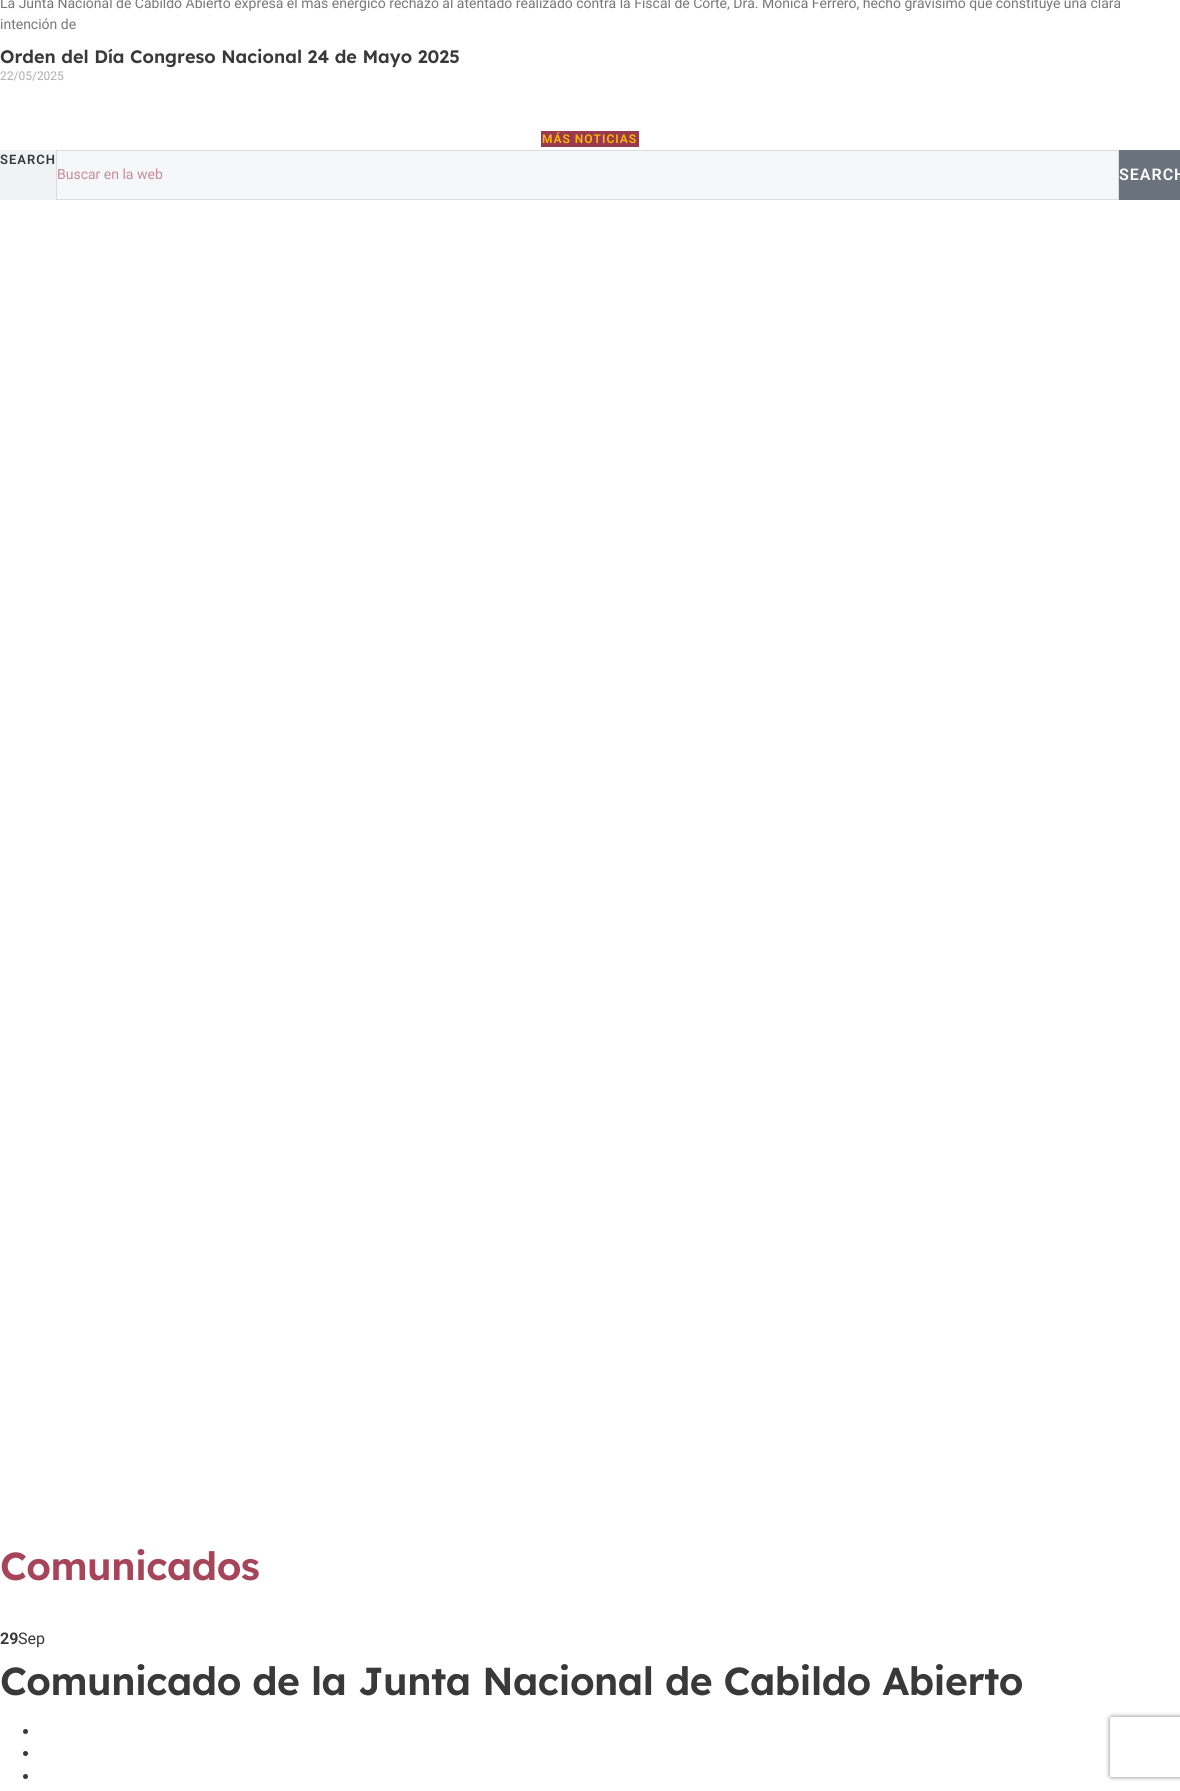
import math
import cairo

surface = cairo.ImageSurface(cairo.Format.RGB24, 1180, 1791)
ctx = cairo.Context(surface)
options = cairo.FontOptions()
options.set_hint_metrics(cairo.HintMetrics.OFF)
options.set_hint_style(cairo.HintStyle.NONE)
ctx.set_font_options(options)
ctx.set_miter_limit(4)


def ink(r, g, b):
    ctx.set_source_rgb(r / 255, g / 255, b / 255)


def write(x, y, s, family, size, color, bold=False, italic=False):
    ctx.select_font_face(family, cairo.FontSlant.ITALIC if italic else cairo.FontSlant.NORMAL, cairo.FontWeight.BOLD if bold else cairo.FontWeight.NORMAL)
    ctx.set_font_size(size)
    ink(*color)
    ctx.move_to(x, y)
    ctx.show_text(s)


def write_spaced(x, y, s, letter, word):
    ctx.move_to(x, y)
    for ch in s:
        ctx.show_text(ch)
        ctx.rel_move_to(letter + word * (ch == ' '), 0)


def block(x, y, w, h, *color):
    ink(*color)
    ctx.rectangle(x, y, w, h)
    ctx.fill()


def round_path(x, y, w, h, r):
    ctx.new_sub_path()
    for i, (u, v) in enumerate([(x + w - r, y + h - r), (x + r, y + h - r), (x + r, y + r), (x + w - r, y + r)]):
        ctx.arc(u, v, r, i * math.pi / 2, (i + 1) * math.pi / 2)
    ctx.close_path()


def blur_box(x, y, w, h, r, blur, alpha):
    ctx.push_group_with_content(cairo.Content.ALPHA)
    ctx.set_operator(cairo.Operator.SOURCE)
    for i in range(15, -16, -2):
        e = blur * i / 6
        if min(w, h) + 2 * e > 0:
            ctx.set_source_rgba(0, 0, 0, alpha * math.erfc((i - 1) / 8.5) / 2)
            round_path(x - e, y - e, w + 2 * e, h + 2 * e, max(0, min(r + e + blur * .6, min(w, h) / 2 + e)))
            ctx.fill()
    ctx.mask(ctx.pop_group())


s1 = dict(family="Roboto", size=14, color=(119, 119, 119))
s2 = dict(family="Lexend SemiBold", size=18, color=(57, 57, 57))
s3 = dict(family="Roboto", size=12, color=(173, 173, 173))
s4 = dict(family="Roboto", size=14, color=(198, 140, 153))
s5 = dict(family="Roboto", size=16, color=(57, 57, 57), bold=True)
s6 = dict(family="Roboto", size=16, color=(57, 57, 57))

ink(255, 255, 255)
ctx.paint()
write(0, 8, "La Junta Nacional de Cabildo Abierto expresa el más enérgico rechazo al atentado realizado contra la Fiscal de Corte, Dra. Mónica Ferrero, hecho gravísimo que constituye una clara", **s1)
write(0, 29, "intención de", **s1)
write(0, 63, "Orden del Día Congreso Nacional 24 de Mayo 2025", **s2)
write(0, 80, "22/05/2025", **s3)
block(541, 131, 98, 16, 153, 58, 78)
ctx.select_font_face("Roboto SemiBold")
ink(251, 186, 0)
write_spaced(542, 143, "MÁS NOTICIAS", 1, 0)
block(0, 150, 56, 50, 241, 242, 243)
ctx.set_font_size(13)
ink(57, 57, 57)
write_spaced(0, 164, "SEARCH", 1, 0)
ink(245, 247, 248)
ctx.rectangle(56.5, 150.5, 1062, 49)
ctx.fill_preserve()
ink(220, 220, 222)
ctx.set_line_width(1)
ctx.stroke()
write(57, 179, "Buscar en la web", **s4)
block(1119, 150, 61, 50, 105, 114, 125)
ctx.select_font_face("Roboto SemiBold")
ctx.set_font_size(16)
ink(255, 255, 255)
write_spaced(1119, 180, "SEARCH", 1, 0)
ctx.select_font_face("Lexend SemiBold")
ctx.set_font_size(39)
ink(166, 69, 89)
write_spaced(0, 1580, "Comunicados", -0.5, 0)
write(0, 1644, "29", **s5)
write(18, 1644, "Sep", **s6)
ctx.select_font_face("Lexend SemiBold")
ctx.set_font_size(39)
write_spaced(0, 1695, "Comunicado de la Junta Nacional de Cabildo Abierto", -0.5, 0)
ctx.new_path()
ctx.arc(25.5, 1731.5, 2.5, 0, 2 * math.pi)
ctx.fill()
ctx.arc(25.5, 1753.5, 2.5, 0, 2 * math.pi)
ctx.fill()
ctx.arc(25.5, 1776.5, 2.5, 0, 2 * math.pi)
ctx.fill()
ctx.save()
ctx.set_fill_rule(cairo.FillRule.EVEN_ODD)
ctx.new_path()
ctx.move_to(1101, 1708)
ctx.line_to(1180, 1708)
ctx.line_to(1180, 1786)
ctx.line_to(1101, 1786)
ctx.close_path()
ctx.move_to(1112, 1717)
ctx.line_to(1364, 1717)
ctx.curve_to(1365, 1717, 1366, 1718, 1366, 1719)
ctx.line_to(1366, 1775)
ctx.curve_to(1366, 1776, 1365, 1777, 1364, 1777)
ctx.line_to(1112, 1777)
ctx.curve_to(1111, 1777, 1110, 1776, 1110, 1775)
ctx.line_to(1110, 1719)
ctx.curve_to(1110, 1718, 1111, 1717, 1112, 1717)
ctx.close_path()
ctx.clip()
ink(128, 128, 128)
blur_box(1110, 1717, 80, 60, 2, 2.5, 1)
ctx.restore()
surface.write_to_png("screenshot.png")
